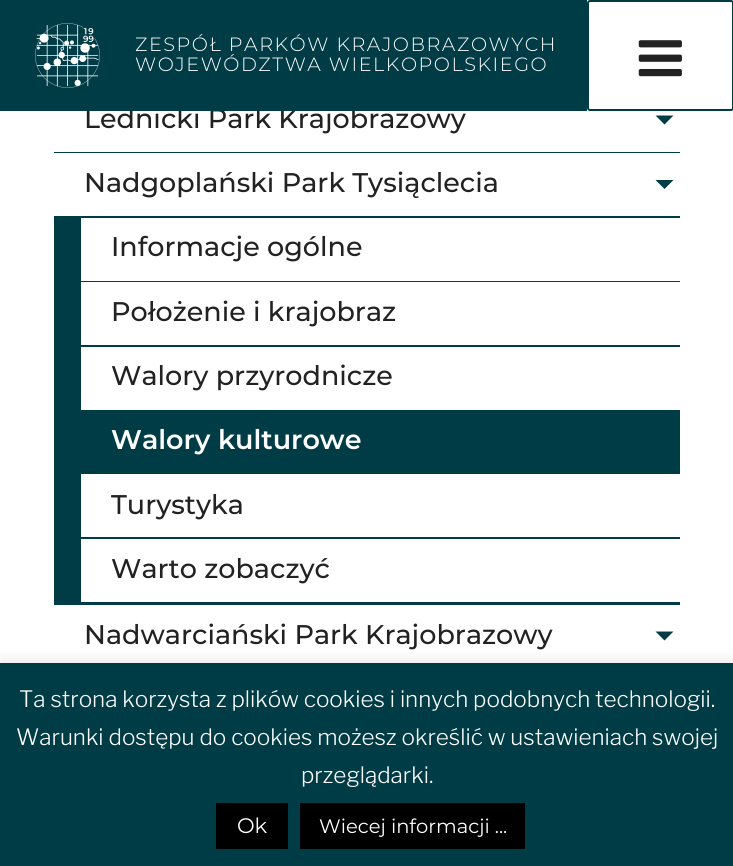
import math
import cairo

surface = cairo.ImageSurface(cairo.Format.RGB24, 733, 866)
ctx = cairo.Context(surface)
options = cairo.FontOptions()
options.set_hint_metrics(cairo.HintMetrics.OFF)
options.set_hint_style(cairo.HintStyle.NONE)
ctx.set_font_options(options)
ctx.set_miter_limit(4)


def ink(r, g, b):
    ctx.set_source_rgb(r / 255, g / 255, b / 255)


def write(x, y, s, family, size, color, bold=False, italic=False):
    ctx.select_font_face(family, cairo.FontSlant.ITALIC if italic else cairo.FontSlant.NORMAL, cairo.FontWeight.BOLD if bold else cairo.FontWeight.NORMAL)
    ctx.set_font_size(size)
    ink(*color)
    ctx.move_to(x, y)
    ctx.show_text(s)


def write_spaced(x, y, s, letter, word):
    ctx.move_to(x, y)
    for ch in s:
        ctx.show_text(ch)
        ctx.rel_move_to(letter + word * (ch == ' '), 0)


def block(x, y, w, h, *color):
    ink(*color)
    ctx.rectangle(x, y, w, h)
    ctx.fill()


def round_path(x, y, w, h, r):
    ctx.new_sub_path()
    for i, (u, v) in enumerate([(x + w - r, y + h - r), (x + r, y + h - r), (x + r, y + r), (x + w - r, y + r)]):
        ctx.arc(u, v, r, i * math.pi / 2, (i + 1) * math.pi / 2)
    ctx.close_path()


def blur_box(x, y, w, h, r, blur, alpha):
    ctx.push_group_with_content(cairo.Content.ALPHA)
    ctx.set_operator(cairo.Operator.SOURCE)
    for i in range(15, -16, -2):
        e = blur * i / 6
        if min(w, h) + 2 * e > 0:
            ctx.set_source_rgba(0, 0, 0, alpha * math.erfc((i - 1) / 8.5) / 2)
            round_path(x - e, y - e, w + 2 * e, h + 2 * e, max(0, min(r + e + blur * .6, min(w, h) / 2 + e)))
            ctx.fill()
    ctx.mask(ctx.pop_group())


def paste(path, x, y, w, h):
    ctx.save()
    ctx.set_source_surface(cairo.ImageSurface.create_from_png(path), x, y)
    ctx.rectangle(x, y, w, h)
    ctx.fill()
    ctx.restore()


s1 = dict(family="Montserrat Medium", size=27, color=(34, 34, 34))
s2 = dict(family="Montserrat SemiBold", size=27, color=(255, 255, 255))
s3 = dict(family="Libre Franklin Thin", size=22.5, color=(255, 255, 255))
s4 = dict(family="Montserrat", size=21, color=(255, 255, 255))
s5 = dict(family="Montserrat", size=19.5, color=(255, 255, 255))

ink(255, 255, 255)
ctx.paint()
write(84, 128, "Lednicki Park Krajobrazowy", **s1)
block(0, 0, 587, 111, 0, 60, 70)
paste("pic1.png", 35, 23, 65, 65)
ctx.select_font_face("Montserrat Light")
ctx.set_font_size(19.2)
ink(255, 255, 255)
write_spaced(135, 51, "ZESPÓŁ PARKÓW KRAJOBRAZOWYCH", 1.55, 0)
write_spaced(135, 71, "WOJEWÓDZTWA WIELKOPOLSKIEGO", 1.55, 0)
round_path(588, 1, 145, 109, 2)
ink(0, 60, 70)
ctx.stroke()
paste("pic2.png", 638, 40, 44, 37)
ctx.new_path()
ctx.move_to(655.5, 115.5)
ctx.line_to(673.5, 115.5)
ctx.line_to(664.5, 124.5)
ctx.close_path()
ctx.fill()
block(54, 152, 626, 1, 0, 60, 70)
write(84, 192, "Nadgoplański Park Tysiąclecia", **s1)
ink(0, 60, 70)
ctx.new_path()
ctx.move_to(655.5, 180)
ctx.line_to(673.5, 180)
ctx.line_to(664.5, 189)
ctx.close_path()
ctx.fill()
block(54, 216, 626, 389, 0, 60, 70)
block(81, 218, 599, 63, 255, 255, 255)
write(111, 256, "Informacje ogólne", **s1)
block(81, 282, 599, 63, 255, 255, 255)
write(111, 321, "Położenie i krajobraz", **s1)
block(81, 347, 599, 63, 255, 255, 255)
write(111, 385, "Walory przyrodnicze", **s1)
write(111, 449, "Walory kulturowe", **s2)
block(81, 474, 599, 63, 255, 255, 255)
write(111, 514, "Turystyka", **s1)
block(81, 539, 599, 63, 255, 255, 255)
write(111, 578, "Warto zobaczyć", **s1)
write(84, 644, "Nadwarciański Park Krajobrazowy", **s1)
ink(0, 60, 70)
ctx.new_path()
ctx.move_to(655.5, 631.5)
ctx.line_to(673.5, 631.5)
ctx.line_to(664.5, 640.5)
ctx.close_path()
ctx.fill()
ink(172, 171, 171)
blur_box(0, 662, 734, 204, 0, 7.5, 0.3)
block(0, 663, 733, 203, 0, 60, 70)
write(19, 707, "Ta strona korzysta z plików cookies i innych podobnych technologii.", **s3)
write(16, 745, "Warunki dostępu do cookies możesz określić w ustawieniach swojej", **s3)
write(301, 783, "przeglądarki.", **s3)
block(216, 803, 72, 46, 0, 0, 0)
write(237, 833, "Ok", **s4)
block(300, 803, 225, 46, 0, 0, 0)
write(319, 833, "Wiecej informacji ...", **s5)
surface.write_to_png("screenshot.png")
